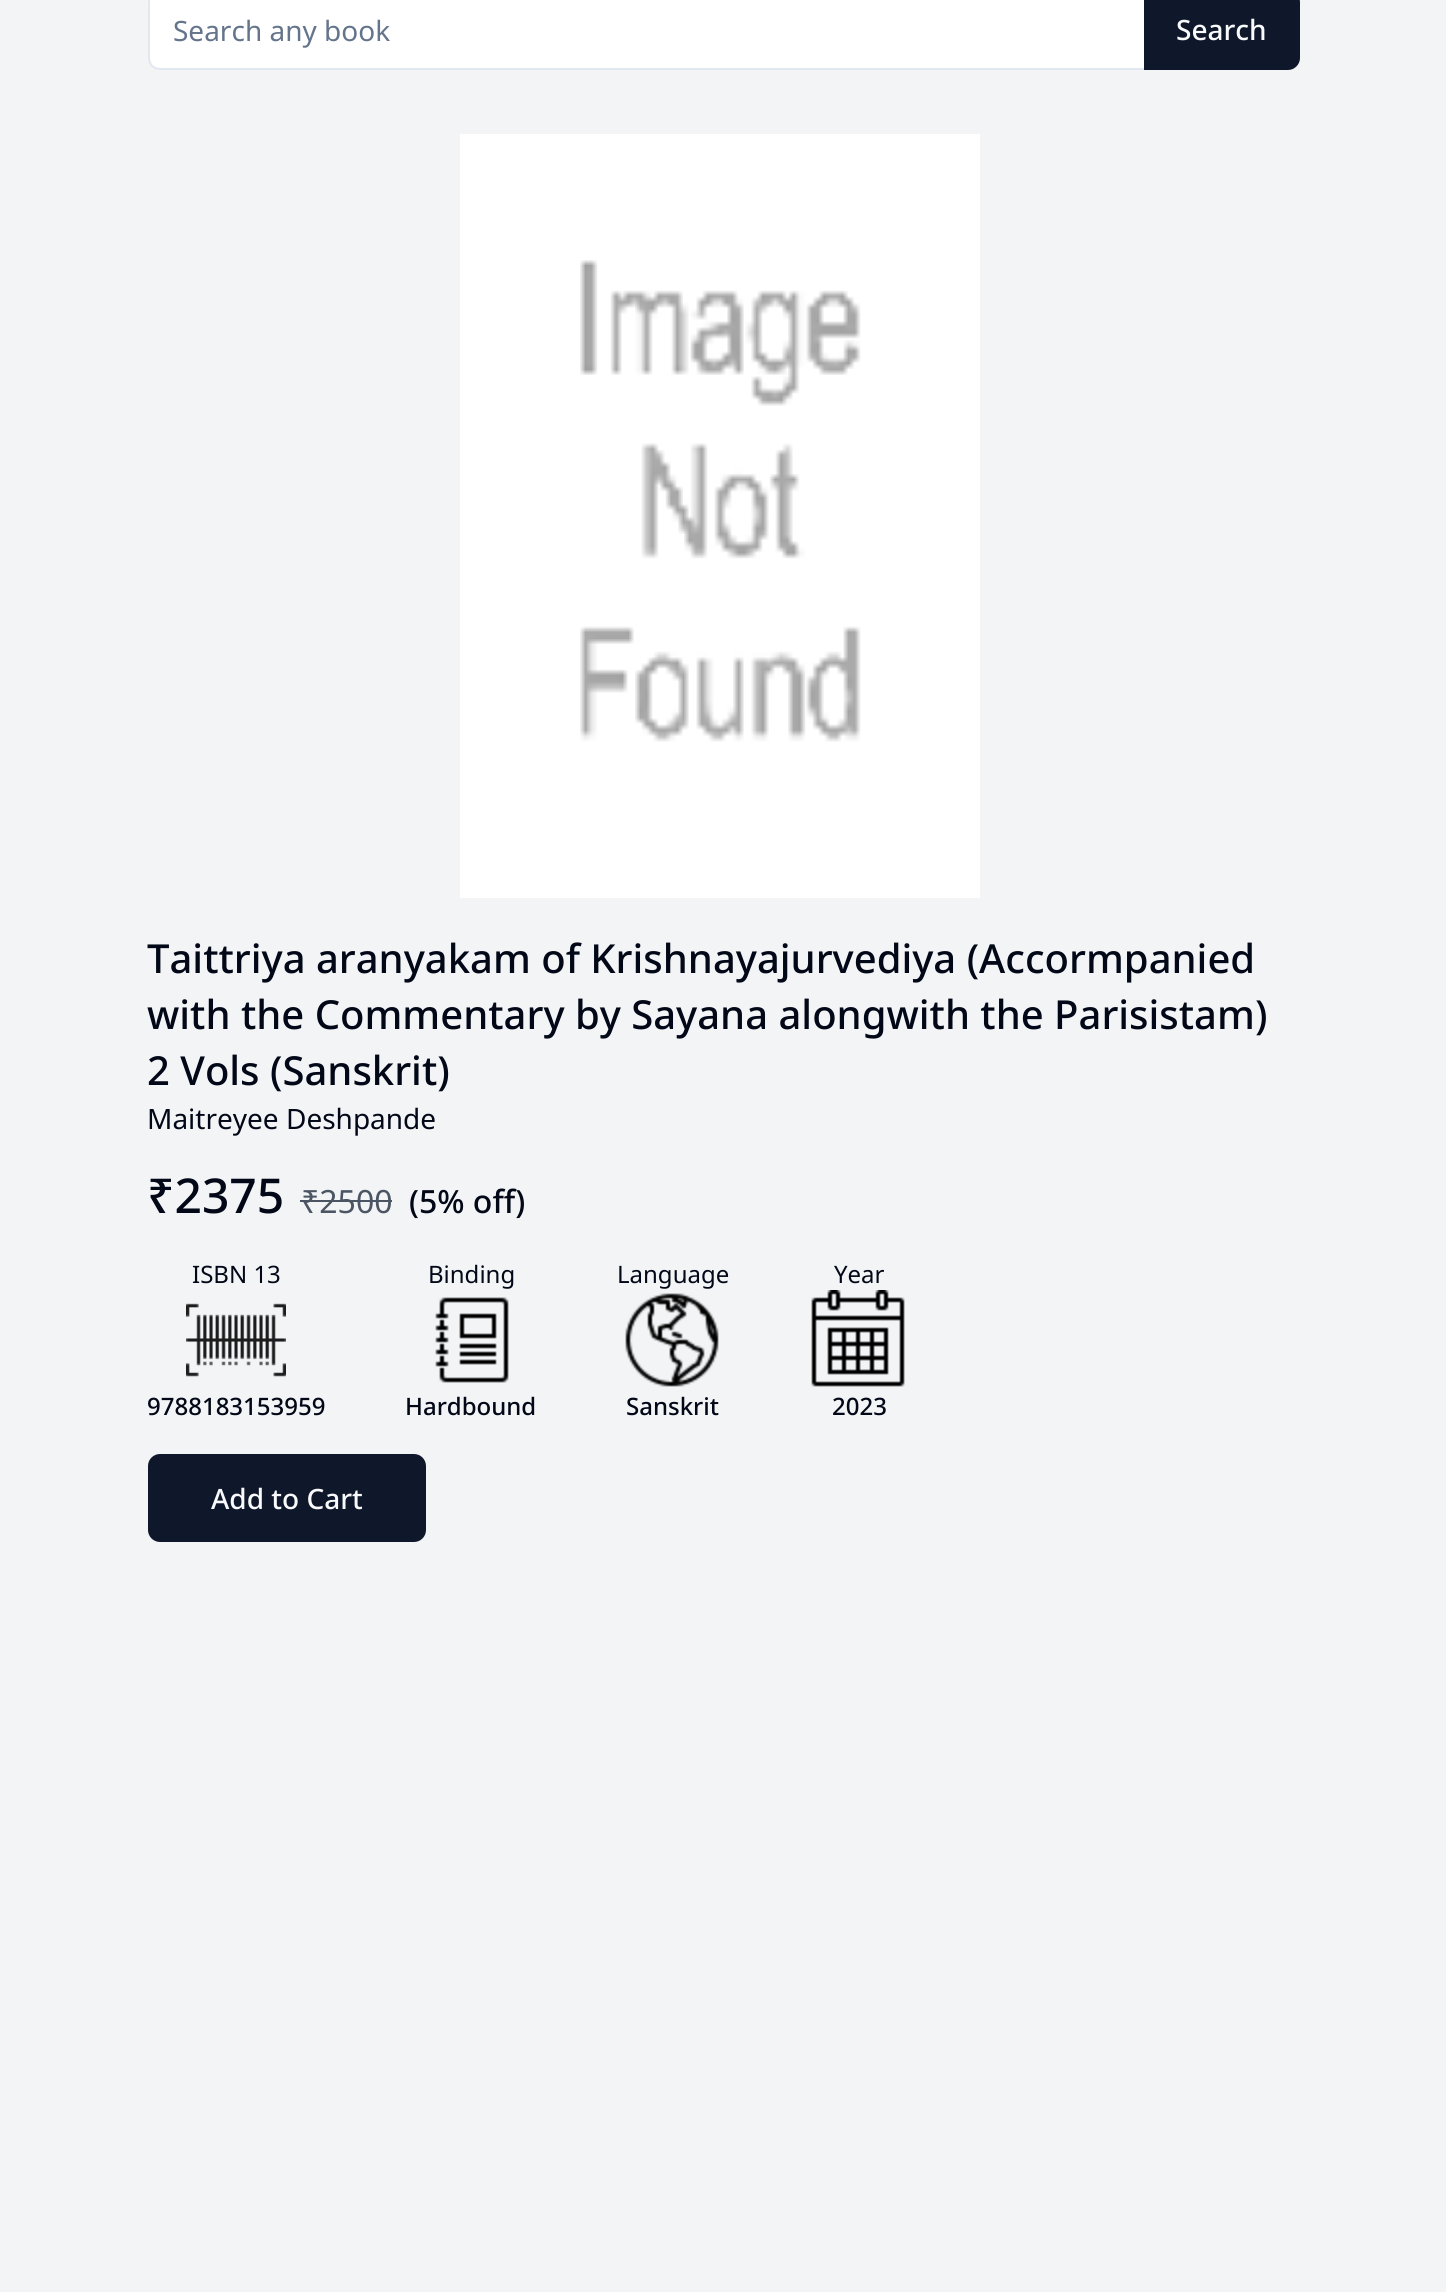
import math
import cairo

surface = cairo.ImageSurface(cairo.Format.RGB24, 1446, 2292)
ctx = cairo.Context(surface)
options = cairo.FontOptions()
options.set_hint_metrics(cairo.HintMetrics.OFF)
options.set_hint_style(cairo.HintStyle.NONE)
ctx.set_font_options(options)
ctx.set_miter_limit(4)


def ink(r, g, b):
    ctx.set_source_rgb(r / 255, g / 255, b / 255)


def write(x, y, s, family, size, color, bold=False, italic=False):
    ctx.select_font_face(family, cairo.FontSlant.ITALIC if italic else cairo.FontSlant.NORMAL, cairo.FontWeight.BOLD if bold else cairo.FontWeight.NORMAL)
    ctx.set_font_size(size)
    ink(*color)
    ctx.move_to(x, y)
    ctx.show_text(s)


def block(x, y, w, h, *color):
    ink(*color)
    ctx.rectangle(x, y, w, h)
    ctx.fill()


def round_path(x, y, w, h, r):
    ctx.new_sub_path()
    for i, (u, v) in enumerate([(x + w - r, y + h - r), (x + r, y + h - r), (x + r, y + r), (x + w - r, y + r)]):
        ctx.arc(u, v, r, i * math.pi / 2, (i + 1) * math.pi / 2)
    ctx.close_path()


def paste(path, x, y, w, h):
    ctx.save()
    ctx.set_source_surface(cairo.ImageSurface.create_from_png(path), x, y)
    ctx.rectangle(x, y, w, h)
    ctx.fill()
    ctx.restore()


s1 = dict(family="Noto Sans", size=28, color=(100, 116, 139))
s2 = dict(family="Noto Sans Medium", size=28, color=(248, 250, 252))
s3 = dict(family="Noto Sans Medium", size=40, color=(2, 8, 23))
s4 = dict(family="Noto Sans", size=28, color=(2, 8, 23))
s5 = dict(family="Noto Sans Medium", size=48, color=(2, 8, 23))
s6 = dict(family="Noto Sans", size=32, color=(75, 85, 99))
s7 = dict(family="Noto Sans Medium", size=32, color=(2, 8, 23))
s8 = dict(family="Noto Sans", size=24, color=(2, 8, 23))
s9 = dict(family="Noto Sans Medium", size=24, color=(2, 8, 23))

ink(243, 244, 246)
ctx.paint()
ink(255, 255, 255)
ctx.new_path()
ctx.move_to(160, -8)
ctx.line_to(1144, -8)
ctx.line_to(1144, 68)
ctx.line_to(160, 68)
ctx.curve_to(154.5, 68, 150, 63.5, 150, 58)
ctx.line_to(150, 2)
ctx.curve_to(150, -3.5, 154.5, -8, 160, -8)
ctx.close_path()
ctx.fill()
ink(226, 232, 240)
ctx.set_fill_rule(cairo.FillRule.EVEN_ODD)
ctx.new_path()
ctx.move_to(160, -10)
ctx.line_to(1144, -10)
ctx.line_to(1144, 70)
ctx.line_to(160, 70)
ctx.curve_to(153, 70, 148, 65, 148, 58)
ctx.line_to(148, 2)
ctx.curve_to(148, -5, 153, -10, 160, -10)
ctx.close_path()
ctx.move_to(160, -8)
ctx.line_to(1144, -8)
ctx.line_to(1144, 68)
ctx.line_to(160, 68)
ctx.curve_to(154, 68, 150, 64, 150, 58)
ctx.line_to(150, 2)
ctx.curve_to(150, -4, 154, -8, 160, -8)
ctx.close_path()
ctx.fill()
write(173, 41, "Search any book", **s1)
ink(15, 23, 42)
ctx.new_path()
ctx.move_to(1144, -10)
ctx.line_to(1288, -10)
ctx.curve_to(1294.5, -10, 1300, -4.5, 1300, 2)
ctx.line_to(1300, 58)
ctx.curve_to(1300, 64.5, 1294.5, 70, 1288, 70)
ctx.line_to(1144, 70)
ctx.close_path()
ctx.fill()
write(1176, 40, "Search", **s2)
paste("pic1.png", 460, 134, 520, 764)
write(147, 973, "Taittriya aranyakam of Krishnayajurvediya (Accormpanied", **s3)
write(147, 1029, "with the Commentary by Sayana alongwith the Parisistam)", **s3)
write(147, 1085, "2 Vols (Sanskrit)", **s3)
write(147, 1129, "Maitreyee Deshpande", **s4)
write(147, 1213, "₹2375", **s5)
write(301, 1213, "₹2500", **s6)
block(300, 1200, 92, 2, 75, 85, 99)
write(409, 1213, "(5% off)", **s7)
write(192, 1283, "ISBN 13", **s8)
paste("pic2.png", 186, 1303, 100, 74)
write(147, 1415, "9788183153959", **s9)
write(428, 1283, "Binding", **s8)
paste("pic3.png", 435, 1297, 74, 86)
write(405, 1415, "Hardbound", **s9)
write(617, 1283, "Language", **s8)
paste("pic4.png", 625, 1293, 94, 94)
write(626, 1415, "Sanskrit", **s9)
write(834, 1283, "Year", **s8)
paste("pic5.png", 811, 1290, 94, 97)
write(832, 1415, "2023", **s9)
ink(15, 23, 42)
round_path(148, 1454, 278, 88, 12)
ctx.fill()
write(211, 1509, "Add to Cart", **s2)
surface.write_to_png("screenshot.png")
